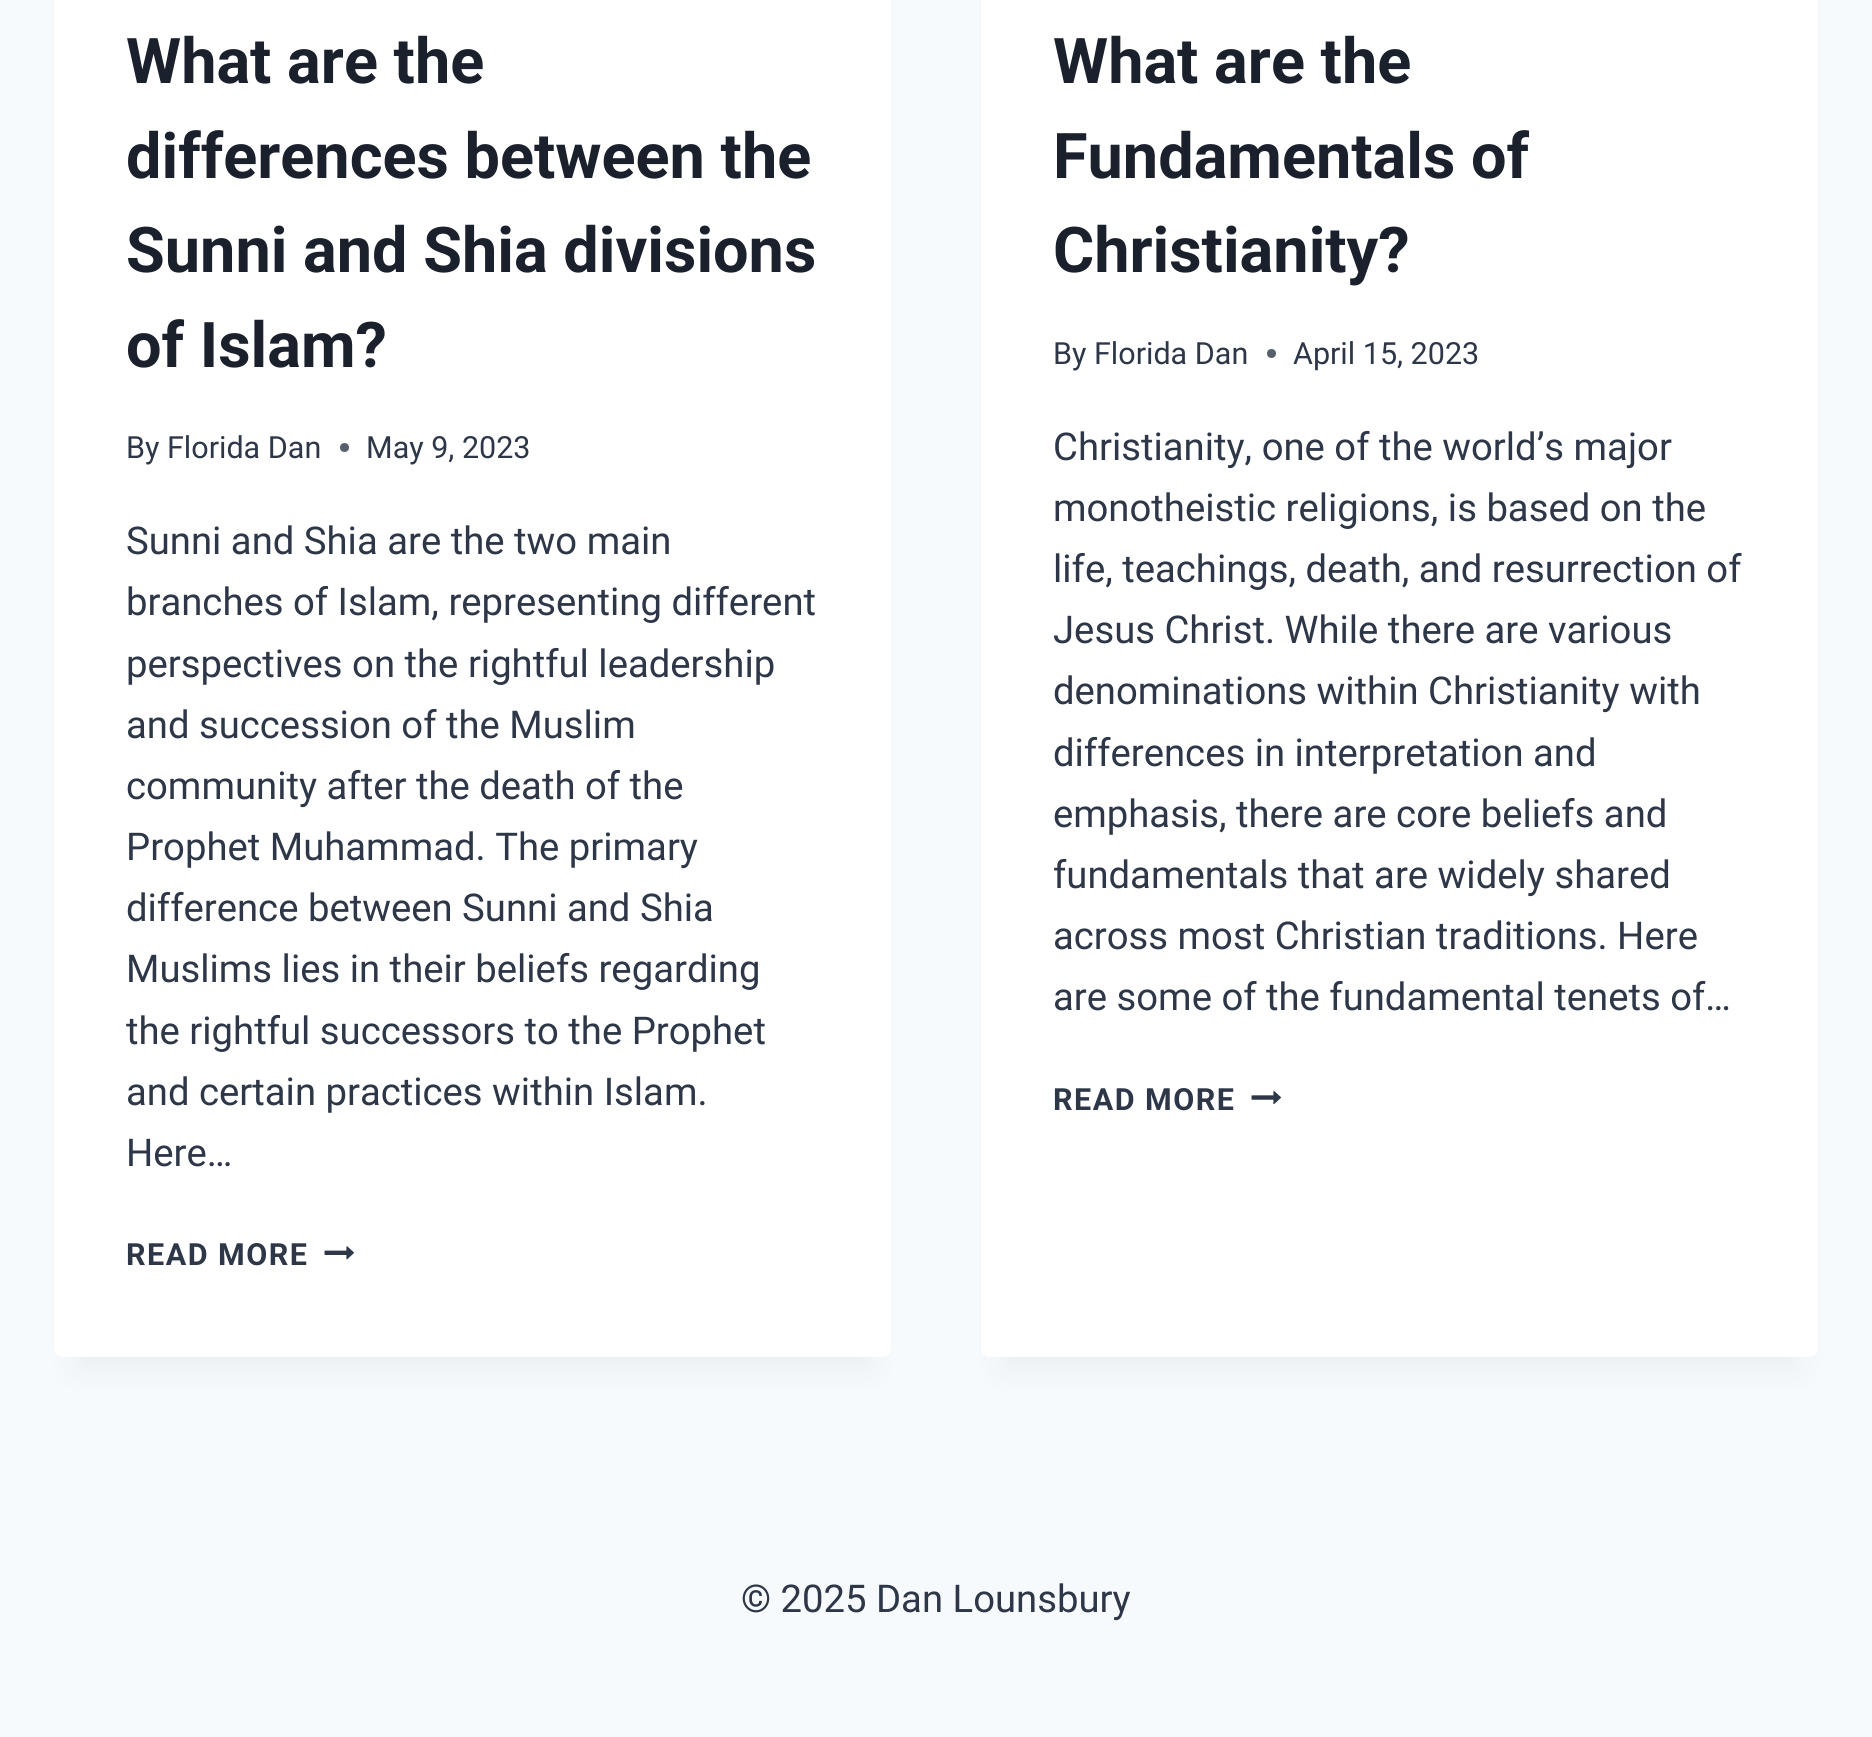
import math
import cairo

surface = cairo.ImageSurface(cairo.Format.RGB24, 1872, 1737)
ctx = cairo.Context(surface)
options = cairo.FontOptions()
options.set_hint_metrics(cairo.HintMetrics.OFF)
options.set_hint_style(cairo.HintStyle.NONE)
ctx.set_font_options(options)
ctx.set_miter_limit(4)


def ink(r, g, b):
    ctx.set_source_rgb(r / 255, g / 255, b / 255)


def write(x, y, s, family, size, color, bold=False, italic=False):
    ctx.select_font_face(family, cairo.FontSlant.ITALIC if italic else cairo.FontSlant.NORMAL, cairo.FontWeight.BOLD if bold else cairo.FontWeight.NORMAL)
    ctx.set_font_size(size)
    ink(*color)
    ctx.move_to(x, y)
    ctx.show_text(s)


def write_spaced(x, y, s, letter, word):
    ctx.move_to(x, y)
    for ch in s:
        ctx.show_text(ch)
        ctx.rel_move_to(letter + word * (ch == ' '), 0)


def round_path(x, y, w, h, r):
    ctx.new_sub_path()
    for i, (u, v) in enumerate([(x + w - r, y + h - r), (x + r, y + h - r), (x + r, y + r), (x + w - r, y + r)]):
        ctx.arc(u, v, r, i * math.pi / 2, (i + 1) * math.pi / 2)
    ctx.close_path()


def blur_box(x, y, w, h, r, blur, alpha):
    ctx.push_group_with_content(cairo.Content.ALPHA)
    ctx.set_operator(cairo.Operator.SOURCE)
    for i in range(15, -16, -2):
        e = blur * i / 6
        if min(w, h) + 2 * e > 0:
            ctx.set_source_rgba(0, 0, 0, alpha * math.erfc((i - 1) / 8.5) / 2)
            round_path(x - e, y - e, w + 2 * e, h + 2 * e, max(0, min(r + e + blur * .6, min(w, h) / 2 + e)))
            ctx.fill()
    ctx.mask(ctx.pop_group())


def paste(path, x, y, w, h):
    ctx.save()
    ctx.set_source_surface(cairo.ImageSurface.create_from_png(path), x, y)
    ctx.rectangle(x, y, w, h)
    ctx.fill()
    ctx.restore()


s1 = dict(family="Roboto", size=63, color=(26, 32, 44), bold=True)
s2 = dict(family="Roboto", size=30.5, color=(45, 55, 72))
s3 = dict(family="Roboto", size=38.25, color=(45, 55, 72))

ink(247, 250, 252)
ctx.paint()
ink(0, 0, 0)
blur_box(77, -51, 792, 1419, 0, 17, 0.05)
ink(255, 255, 255)
round_path(54, -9, 837, 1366, 9)
ctx.fill()
write(126, 83, "What are the", **s1)
write(126, 178, "differences between the", **s1)
write(126, 272, "Sunni and Shia divisions", **s1)
write(126, 367, "of Islam?", **s1)
write(126, 458, "By", **s2)
write(167, 458, "Florida Dan", **s2)
ink(87, 95, 109)
ctx.new_path()
ctx.arc(344.5, 447.5, 4.5, 0, 2 * math.pi)
ctx.fill()
write(366, 458, "May 9, 2023", **s2)
write(126, 554, "Sunni and Shia are the two main", **s3)
write(126, 615, "branches of Islam, representing different", **s3)
write(126, 677, "perspectives on the rightful leadership", **s3)
write(126, 738, "and succession of the Muslim", **s3)
write(126, 799, "community after the death of the", **s3)
write(126, 860, "Prophet Muhammad. The primary", **s3)
write(126, 921, "difference between Sunni and Shia", **s3)
write(126, 982, "Muslims lies in their beliefs regarding", **s3)
write(126, 1044, "the rightful successors to the Prophet", **s3)
write(126, 1105, "and certain practices within Islam.", **s3)
write(126, 1166, "Here…", **s3)
ctx.select_font_face("Roboto", cairo.FontSlant.NORMAL, cairo.FontWeight.BOLD)
ctx.set_font_size(30.5)
write_spaced(126, 1265, "READ MORE", 1.5, 0)
paste("pic1.png", 324, 1246, 30, 14)
ink(0, 0, 0)
blur_box(1004, -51, 792, 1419, 0, 17, 0.05)
ink(255, 255, 255)
round_path(981, -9, 837, 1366, 9)
ctx.fill()
write(1053, 83, "What are the", **s1)
write(1053, 178, "Fundamentals of", **s1)
write(1053, 272, "Christianity?", **s1)
write(1053, 364, "By", **s2)
write(1094, 364, "Florida Dan", **s2)
ink(87, 95, 109)
ctx.new_path()
ctx.arc(1271.5, 353.5, 4.5, 0, 2 * math.pi)
ctx.fill()
write(1293, 364, "April 15, 2023", **s2)
write(1053, 460, "Christianity, one of the world’s major", **s3)
write(1053, 521, "monotheistic religions, is based on the", **s3)
write(1053, 582, "life, teachings, death, and resurrection of", **s3)
write(1053, 643, "Jesus Christ. While there are various", **s3)
write(1053, 704, "denominations within Christianity with", **s3)
write(1053, 766, "differences in interpretation and", **s3)
write(1053, 827, "emphasis, there are core beliefs and", **s3)
write(1053, 888, "fundamentals that are widely shared", **s3)
write(1053, 949, "across most Christian traditions. Here", **s3)
write(1053, 1010, "are some of the fundamental tenets of…", **s3)
ctx.select_font_face("Roboto", cairo.FontSlant.NORMAL, cairo.FontWeight.BOLD)
ctx.set_font_size(30.5)
write_spaced(1053, 1110, "READ MORE", 1.5, 0)
paste("pic2.png", 1251, 1091, 30, 13)
write(741, 1612, "© 2025 Dan Lounsbury", **s3)
surface.write_to_png("screenshot.png")
